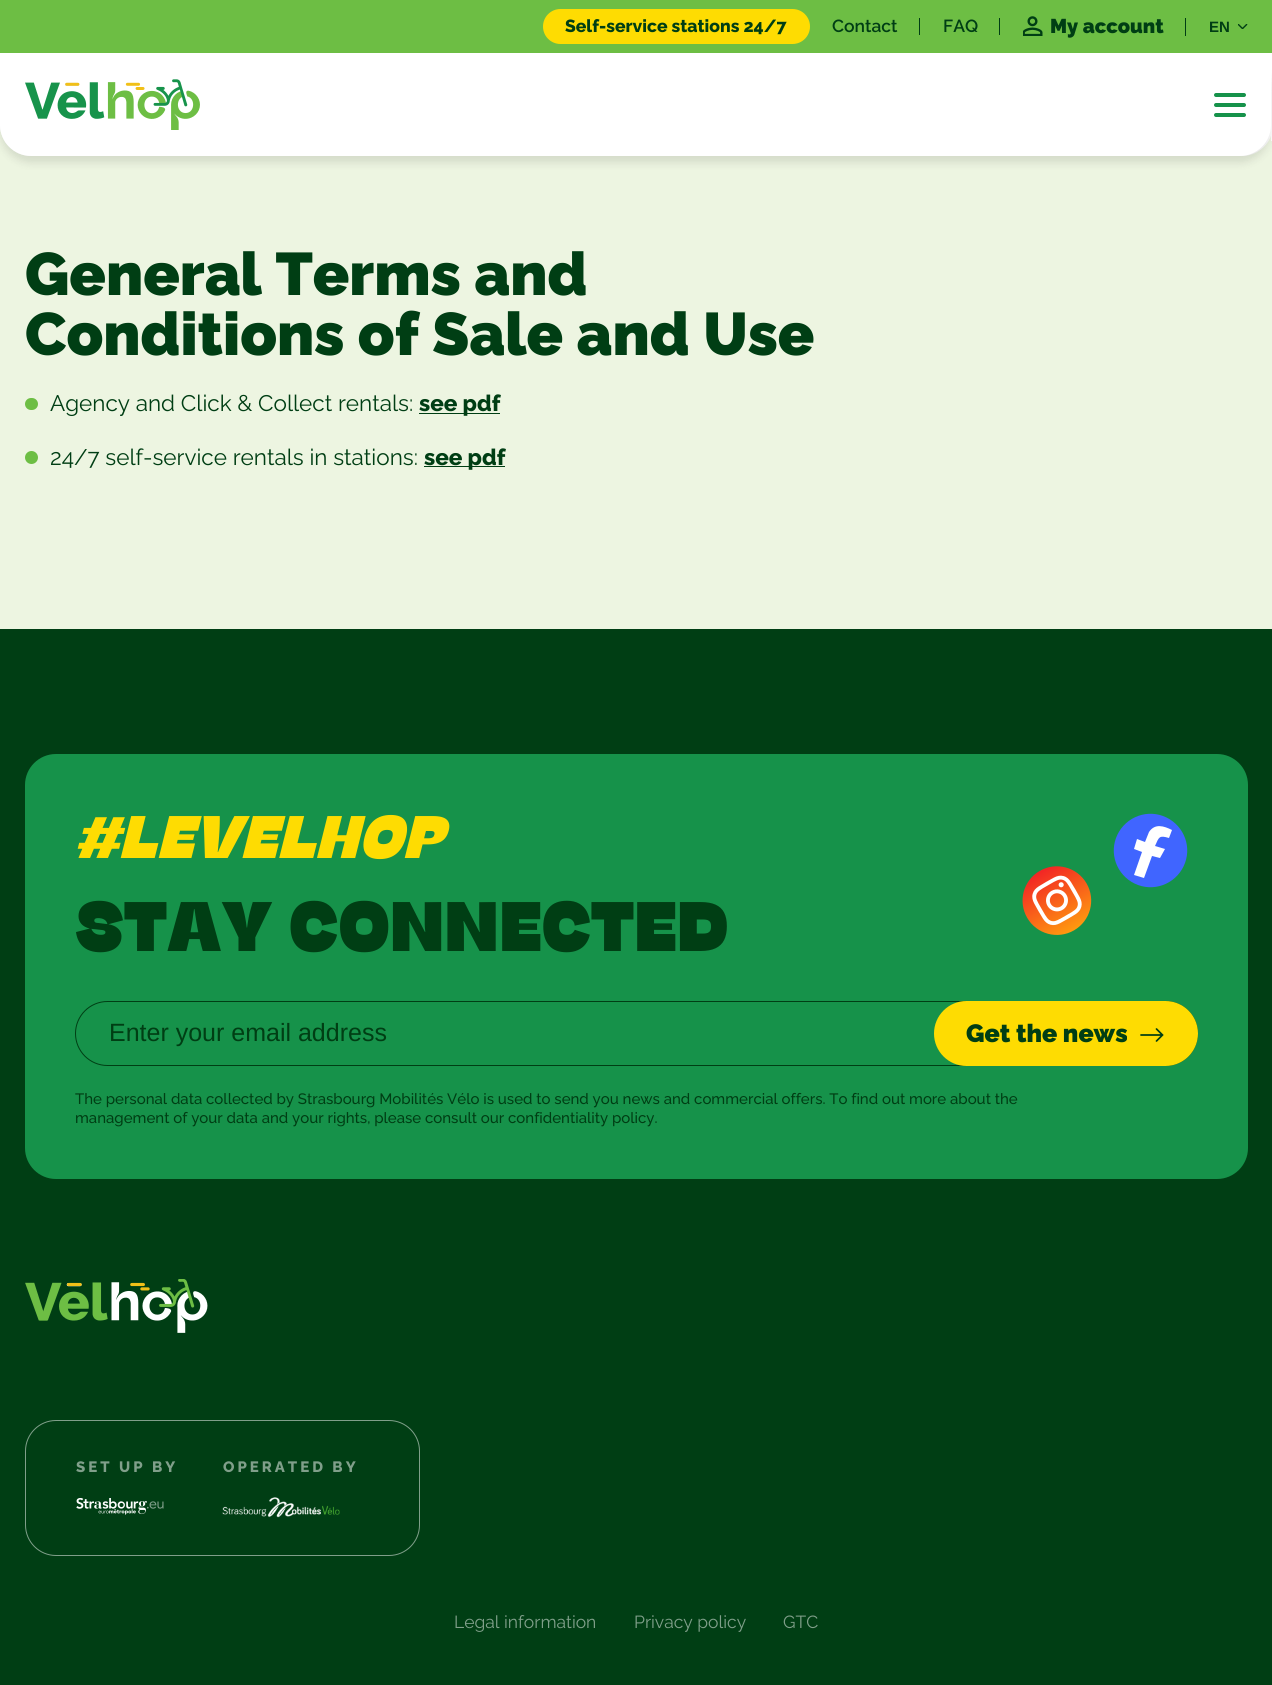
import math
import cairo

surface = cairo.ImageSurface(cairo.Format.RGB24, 1272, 1685)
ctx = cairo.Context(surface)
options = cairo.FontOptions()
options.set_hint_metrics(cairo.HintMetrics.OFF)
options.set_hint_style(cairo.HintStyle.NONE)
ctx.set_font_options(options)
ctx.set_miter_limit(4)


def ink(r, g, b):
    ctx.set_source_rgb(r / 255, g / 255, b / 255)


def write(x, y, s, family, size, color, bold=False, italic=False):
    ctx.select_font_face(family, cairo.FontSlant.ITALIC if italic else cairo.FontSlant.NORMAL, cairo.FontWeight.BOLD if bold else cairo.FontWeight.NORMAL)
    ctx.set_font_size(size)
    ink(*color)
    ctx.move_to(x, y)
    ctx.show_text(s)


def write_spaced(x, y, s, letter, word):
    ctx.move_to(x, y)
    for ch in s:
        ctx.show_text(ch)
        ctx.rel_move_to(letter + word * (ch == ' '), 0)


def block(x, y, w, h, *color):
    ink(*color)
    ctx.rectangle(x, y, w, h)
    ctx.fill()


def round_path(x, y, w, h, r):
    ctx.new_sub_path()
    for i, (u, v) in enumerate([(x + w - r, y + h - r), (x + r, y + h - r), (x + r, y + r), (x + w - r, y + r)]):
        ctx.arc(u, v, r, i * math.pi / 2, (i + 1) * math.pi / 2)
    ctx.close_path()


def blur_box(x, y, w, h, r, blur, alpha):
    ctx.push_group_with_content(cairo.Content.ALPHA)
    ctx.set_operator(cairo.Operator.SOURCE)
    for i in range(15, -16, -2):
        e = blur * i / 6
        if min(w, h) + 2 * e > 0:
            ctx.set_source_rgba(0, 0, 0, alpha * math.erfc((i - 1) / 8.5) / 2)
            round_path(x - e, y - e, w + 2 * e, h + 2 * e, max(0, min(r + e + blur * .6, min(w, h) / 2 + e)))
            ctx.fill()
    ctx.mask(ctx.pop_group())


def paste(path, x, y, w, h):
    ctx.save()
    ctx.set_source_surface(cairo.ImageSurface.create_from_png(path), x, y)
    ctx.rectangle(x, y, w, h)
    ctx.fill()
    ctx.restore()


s1 = dict(family="Raleway ExtraBold", size=17.5, color=(0, 62, 20))
s2 = dict(family="Raleway SemiBold", size=17.5, color=(0, 62, 20))
s3 = dict(family="Raleway Black", size=20, color=(0, 62, 20))
s4 = dict(family="Liberation Sans", size=15, color=(0, 62, 20), bold=True)
s5 = dict(family="Raleway Black", size=60, color=(0, 62, 20))
s6 = dict(family="Raleway", size=22.5, color=(0, 62, 20))
s7 = dict(family="Raleway ExtraBold", size=22.5, color=(0, 62, 20))
s8 = dict(family="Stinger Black", size=60, color=(254, 220, 2), italic=True)
s9 = dict(family="Stinger Black", size=70, color=(0, 62, 20))
s10 = dict(family="Liberation Sans", size=25, color=(0, 62, 20))
s11 = dict(family="Raleway Black", size=25, color=(0, 62, 20))
s12 = dict(family="Raleway Medium", size=15, color=(0, 62, 20))
s13 = dict(family="Raleway", size=17.5, color=(128, 159, 138))

ink(237, 245, 225)
ctx.paint()
ink(255, 255, 255)
ctx.new_path()
ctx.move_to(0, 53)
ctx.line_to(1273, 53)
ctx.line_to(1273, 125)
ctx.curve_to(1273, 142, 1259, 156, 1242, 156)
ctx.line_to(31, 156)
ctx.curve_to(14, 156, 0, 142, 0, 125)
ctx.close_path()
ctx.fill()
block(1271, 133, 1, 8, 255, 255, 255)
ink(0, 0, 0)
blur_box(0, 59, 1271, 104, 31, 4, 0.1)
block(0, 0, 1272, 53, 109, 190, 68)
ink(254, 220, 2)
round_path(543, 9, 267, 35, 17.5)
ctx.fill()
write(565, 32, "Self-service stations 24/7", **s1)
write(832, 32, "Contact", **s2)
block(919, 18, 1, 17, 0, 62, 20)
write(943, 32, "FAQ", **s2)
block(999, 18, 1, 17, 0, 62, 20)
paste("pic1.png", 1023, 16, 20, 20)
write(1050, 33, "My account", **s3)
block(1185, 18, 1, 18, 0, 62, 20)
paste("pic2.png", 1238, 24, 10, 5)
write(1209, 32, "EN", **s4)
ink(255, 255, 255)
ctx.new_path()
ctx.move_to(0, 53)
ctx.line_to(1271, 53)
ctx.line_to(1271, 125)
ctx.curve_to(1271, 142, 1257, 156, 1240, 156)
ctx.line_to(31, 156)
ctx.curve_to(14, 156, 0, 142, 0, 125)
ctx.close_path()
ctx.fill()
paste("pic3.png", 25, 79, 175, 51)
ink(22, 146, 74)
round_path(1214, 113, 32, 4, 2)
ctx.fill()
round_path(1214, 93, 32, 4, 2)
ctx.fill()
round_path(1214, 103, 32, 4, 2)
ctx.fill()
write(25, 295, "General Terms and", **s5)
write(25, 355, "Conditions of Sale and Use", **s5)
ink(109, 190, 68)
round_path(25, 398, 13, 12, 6)
ctx.fill()
write(50, 411, "Agency and Click & Collect rentals:", **s6)
block(419, 413, 81, 1, 0, 62, 20)
write(419, 411, "see pdf", **s7)
ink(109, 190, 68)
ctx.new_path()
ctx.arc(31.5, 457.5, 6.5, 0, 2 * math.pi)
ctx.fill()
write(50, 465, "24/7 self-service rentals in stations:", **s6)
block(424, 466, 81, 1, 0, 62, 20)
write(424, 465, "see pdf", **s7)
block(0, 629, 1272, 1056, 0, 62, 20)
ink(22, 146, 74)
round_path(25, 754, 1223, 425, 31)
ctx.fill()
write(75, 858, "#LEVELHOP", **s8)
write(75, 951, "STAY CONNECTED", **s9)
ink(64, 101, 255)
ctx.new_path()
ctx.move_to(1163, 816)
ctx.curve_to(1182, 823, 1192, 844, 1185, 863)
ctx.curve_to(1178, 882, 1157, 892, 1138, 885)
ctx.curve_to(1119, 878, 1109, 857, 1116, 838)
ctx.curve_to(1123, 819, 1144, 809, 1163, 816)
ctx.close_path()
ctx.fill()
ink(255, 255, 255)
ctx.new_path()
ctx.move_to(1160, 858)
ctx.line_to(1165, 849)
ctx.line_to(1155, 846)
ctx.curve_to(1159, 837, 1159, 835, 1169, 838)
ctx.line_to(1172, 830)
ctx.curve_to(1164, 826, 1155, 823, 1149, 832)
ctx.line_to(1145, 842)
ctx.line_to(1137, 839)
ctx.line_to(1134, 849)
ctx.line_to(1142, 852)
ctx.line_to(1134, 875)
ctx.line_to(1144, 878)
ctx.line_to(1152, 856)
ctx.close_path()
ctx.fill()
paste("pic4.png", 1022, 866, 70, 69)
round_path(75.5, 1001.5, 1122, 64, 32)
ink(0, 62, 20)
ctx.set_line_width(1)
ctx.stroke()
write(109, 1041, "Enter your email address", **s10)
ink(254, 220, 2)
round_path(934, 1001, 264, 65, 32.5)
ctx.fill()
write(966, 1042, "Get the news", **s11)
ctx.new_path()
ctx.move_to(1141, 1035)
ctx.line_to(1162.5, 1035)
ctx.move_to(1156.5, 1029)
ctx.line_to(1162.5, 1035)
ctx.line_to(1156.5, 1041)
ctx.set_line_width(1.7)
ctx.set_line_cap(cairo.LineCap.ROUND)
ctx.stroke()
write(75, 1104, "The personal data collected by Strasbourg Mobilités Vélo is used to send you news and commercial offers. To find out more about the", **s12)
write(75, 1123, "management of your data and your rights, please consult our confidentiality policy.", **s12)
paste("pic5.png", 25, 1279, 183, 54)
round_path(25.5, 1420.5, 394, 135, 30.5)
ink(128, 159, 138)
ctx.set_line_width(1)
ctx.set_line_cap(cairo.LineCap.BUTT)
ctx.stroke()
ctx.select_font_face("Raleway ExtraBold")
write_spaced(76, 1472, "SET UP BY", 3, 0)
paste("pic6.png", 76, 1498, 88, 17)
write_spaced(223, 1472, "OPERATED BY", 3, 0)
paste("pic7.png", 222, 1497, 118, 21)
write(454, 1628, "Legal information", **s13)
write(634, 1628, "Privacy policy", **s13)
write(783, 1628, "GTC", **s13)
surface.write_to_png("screenshot.png")
